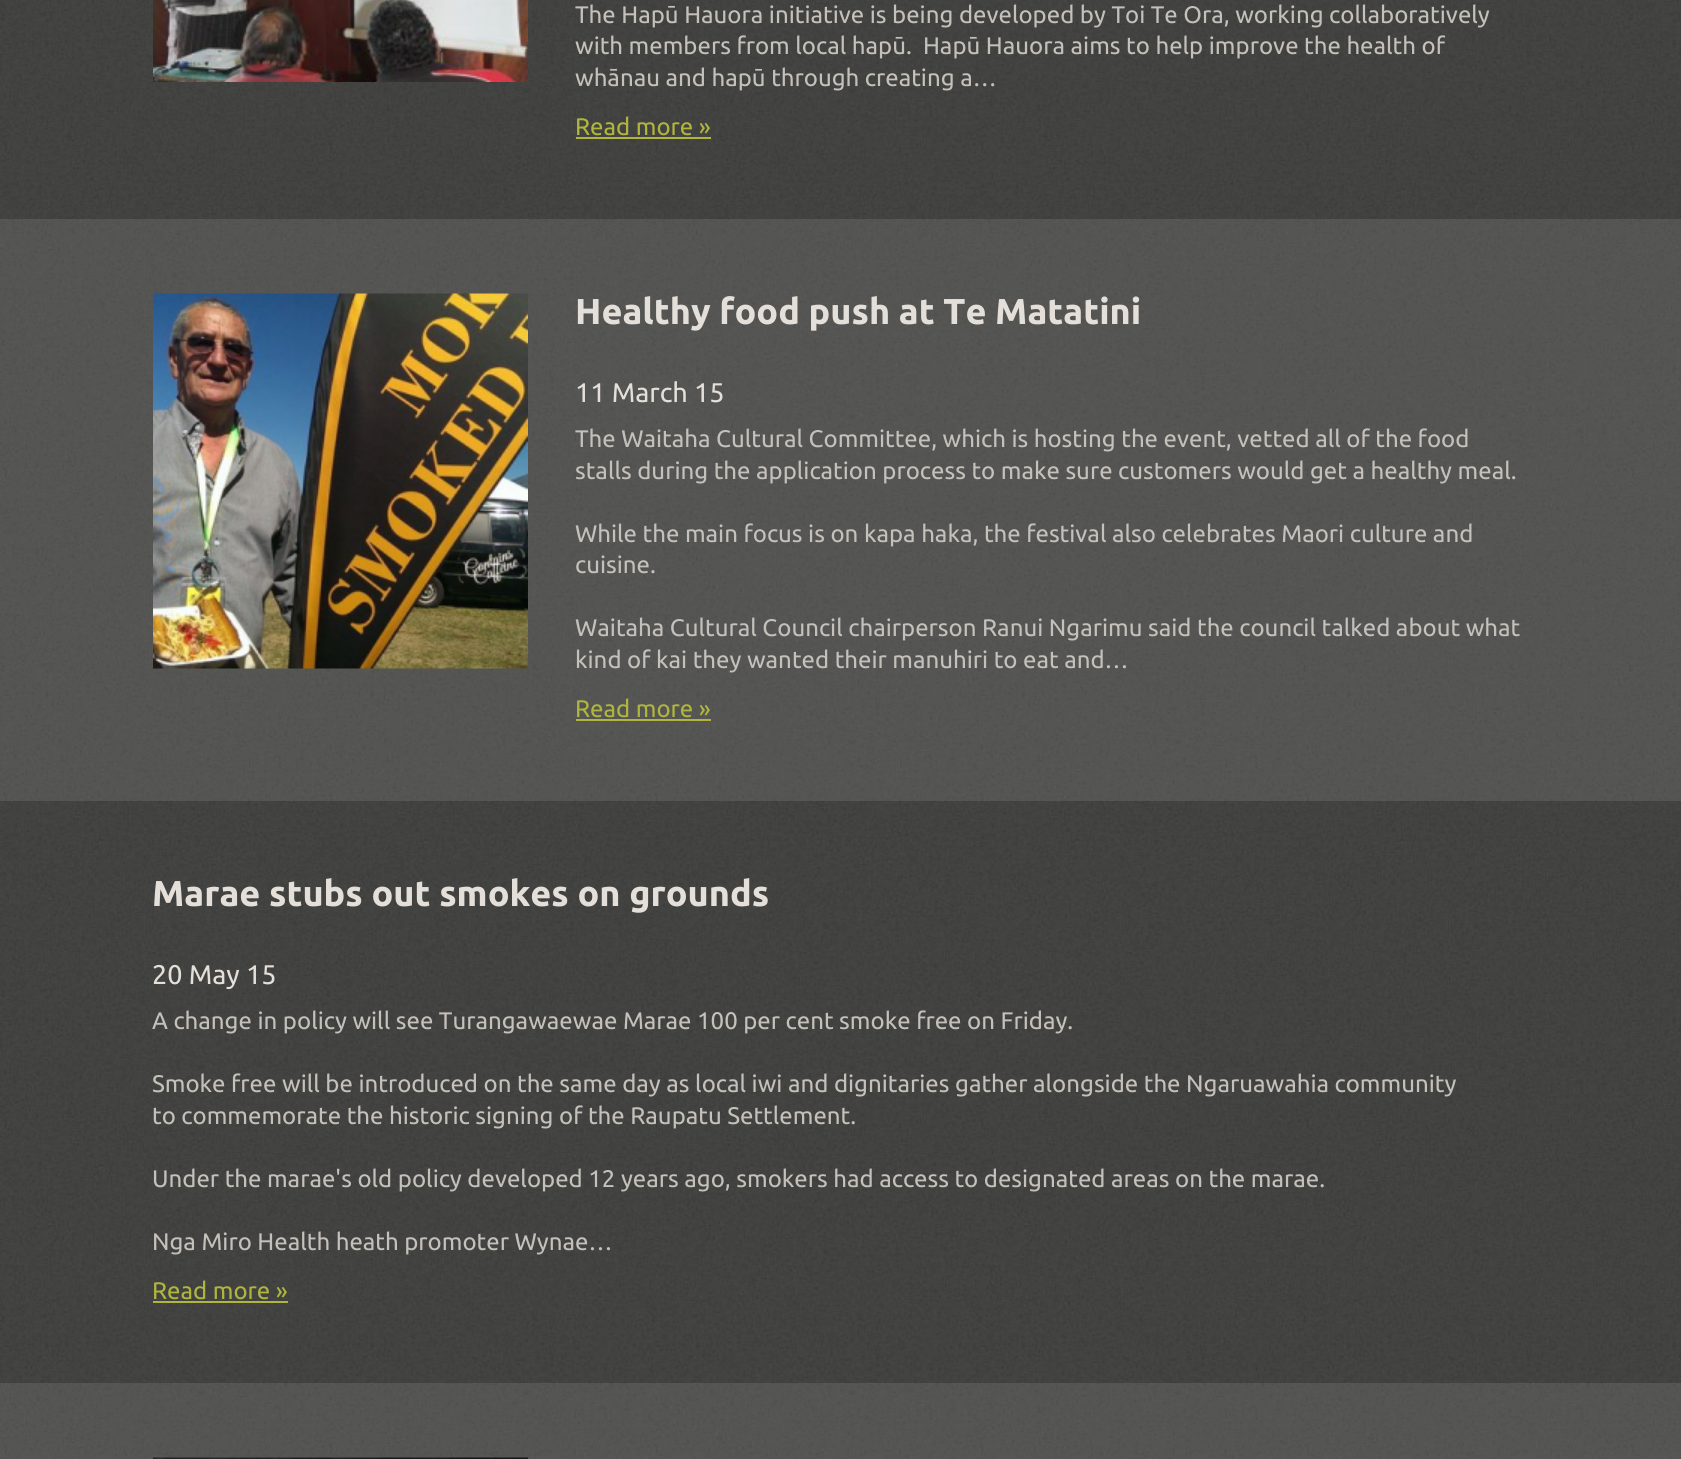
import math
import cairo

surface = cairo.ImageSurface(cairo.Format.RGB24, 1681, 1459)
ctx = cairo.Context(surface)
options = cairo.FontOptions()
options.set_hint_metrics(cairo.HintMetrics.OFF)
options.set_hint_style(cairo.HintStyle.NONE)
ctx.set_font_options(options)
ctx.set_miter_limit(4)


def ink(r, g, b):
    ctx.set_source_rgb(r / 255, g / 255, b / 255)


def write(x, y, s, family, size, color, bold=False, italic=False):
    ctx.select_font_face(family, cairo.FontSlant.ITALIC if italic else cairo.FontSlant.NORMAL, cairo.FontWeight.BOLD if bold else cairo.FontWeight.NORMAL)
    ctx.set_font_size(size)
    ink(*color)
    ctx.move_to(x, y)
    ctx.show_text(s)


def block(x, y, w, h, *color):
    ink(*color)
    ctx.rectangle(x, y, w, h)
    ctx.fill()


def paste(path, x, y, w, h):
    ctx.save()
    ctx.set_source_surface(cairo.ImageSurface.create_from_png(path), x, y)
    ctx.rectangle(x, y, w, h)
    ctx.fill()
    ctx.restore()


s1 = dict(family="Ubuntu", size=24, color=(196, 192, 186))
s2 = dict(family="Ubuntu", size=24, color=(176, 181, 62))
s3 = dict(family="Ubuntu", size=36, color=(228, 224, 217), bold=True)
s4 = dict(family="Ubuntu", size=27, color=(228, 224, 217))

ink(255, 255, 255)
ctx.paint()
paste("pic1.png", 0, 0, 1681, 1459)
paste("pic2.png", 153, 0, 375, 82)
write(575, 23, "The Hapū Hauora initiative is being developed by Toi Te Ora, working collaboratively", **s1)
write(575, 54, "with members from local hapū.  Hapū Hauora aims to help improve the health of", **s1)
write(575, 86, "whānau and hapū through creating a…", **s1)
write(575, 135, "Read more »", **s2)
block(576, 137, 135, 2, 176, 181, 62)
ctx.set_source_rgba(1, 1, 1, 0.1)
ctx.rectangle(0, 219, 1681, 582)
ctx.fill()
paste("pic3.png", 153, 293, 375, 376)
write(575, 324, "Healthy food push at Te Matatini", **s3)
write(575, 402, "11 March 15", **s4)
write(575, 447, "The Waitaha Cultural Committee, which is hosting the event, vetted all of the food", **s1)
write(575, 479, "stalls during the application process to make sure customers would get a healthy meal.", **s1)
write(575, 542, "While the main focus is on kapa haka, the festival also celebrates Maori culture and", **s1)
write(575, 573, "cuisine.", **s1)
write(575, 636, "Waitaha Cultural Council chairperson Ranui Ngarimu said the council talked about what", **s1)
write(575, 668, "kind of kai they wanted their manuhiri to eat and…", **s1)
write(575, 717, "Read more »", **s2)
block(576, 719, 135, 2, 176, 181, 62)
write(152, 906, "Marae stubs out smokes on grounds", **s3)
write(152, 984, "20 May 15", **s4)
write(152, 1029, "A change in policy will see Turangawaewae Marae 100 per cent smoke free on Friday.", **s1)
write(152, 1092, "Smoke free will be introduced on the same day as local iwi and dignitaries gather alongside the Ngaruawahia community", **s1)
write(152, 1124, "to commemorate the historic signing of the Raupatu Settlement.", **s1)
write(152, 1187, "Under the marae's old policy developed 12 years ago, smokers had access to designated areas on the marae.", **s1)
write(152, 1250, "Nga Miro Health heath promoter Wynae…", **s1)
write(152, 1299, "Read more »", **s2)
block(153, 1301, 135, 2, 176, 181, 62)
ctx.set_source_rgba(1, 1, 1, 0.1)
ctx.rectangle(0, 1383, 1681, 76)
ctx.fill()
paste("pic4.png", 153, 1457, 375, 2)
surface.write_to_png("screenshot.png")
